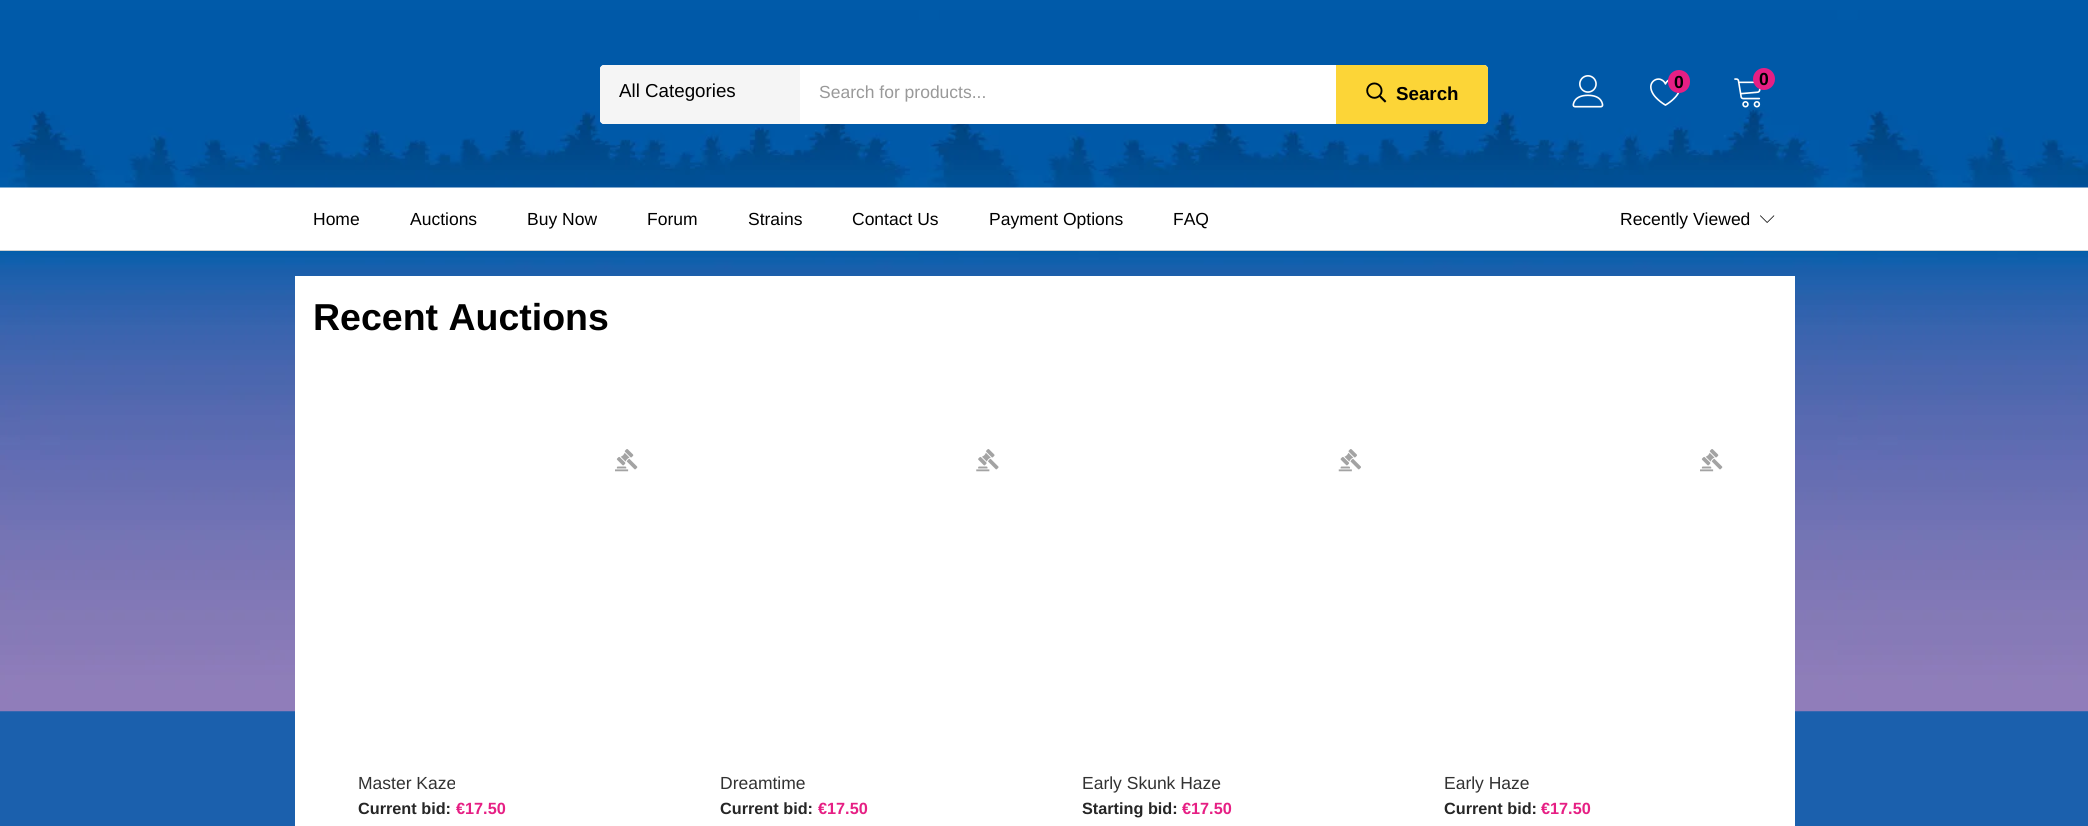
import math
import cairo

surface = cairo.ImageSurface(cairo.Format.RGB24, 2088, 826)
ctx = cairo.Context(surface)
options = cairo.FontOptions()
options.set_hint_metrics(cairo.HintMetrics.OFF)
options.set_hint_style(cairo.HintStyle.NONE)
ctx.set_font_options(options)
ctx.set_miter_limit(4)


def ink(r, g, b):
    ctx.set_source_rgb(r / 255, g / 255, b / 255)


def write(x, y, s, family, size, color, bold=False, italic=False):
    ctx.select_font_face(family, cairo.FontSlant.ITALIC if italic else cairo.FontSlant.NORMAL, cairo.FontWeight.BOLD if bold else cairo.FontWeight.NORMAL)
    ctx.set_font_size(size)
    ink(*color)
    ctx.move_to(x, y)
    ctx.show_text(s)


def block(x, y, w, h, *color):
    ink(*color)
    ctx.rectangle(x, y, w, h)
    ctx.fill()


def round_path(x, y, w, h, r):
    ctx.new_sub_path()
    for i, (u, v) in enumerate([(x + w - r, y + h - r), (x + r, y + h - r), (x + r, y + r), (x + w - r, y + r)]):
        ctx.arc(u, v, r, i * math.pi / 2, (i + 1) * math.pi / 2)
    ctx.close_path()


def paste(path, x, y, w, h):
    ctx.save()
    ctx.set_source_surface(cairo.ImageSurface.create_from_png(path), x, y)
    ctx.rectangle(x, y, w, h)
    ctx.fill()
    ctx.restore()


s1 = dict(family="Liberation Sans", size=17.5, color=(0, 0, 0), bold=True)
s2 = dict(family="Liberation Sans", size=18.75, color=(0, 0, 0))
s3 = dict(family="Liberation Sans", size=17.5, color=(153, 153, 153))
s4 = dict(family="Liberation Sans", size=18.75, color=(0, 0, 0), bold=True)
s5 = dict(family="Liberation Sans", size=17.5, color=(0, 0, 0))
s6 = dict(family="Liberation Sans", size=37.5, color=(0, 0, 0), bold=True)
s7 = dict(family="Liberation Sans", size=17.5, color=(50, 50, 50))
s8 = dict(family="Liberation Sans", size=16.25, color=(38, 38, 38), bold=True)
s9 = dict(family="Liberation Sans", size=16.25, color=(230, 31, 132), bold=True)

ink(27, 96, 173)
ctx.paint()
paste("pic1.png", 0, 251, 2088, 461)
block(0, 187, 2088, 63, 255, 255, 255)
paste("pic2.png", 0, 0, 2088, 188)
paste("pic3.png", 1572, 75, 32, 33)
paste("pic4.png", 1650, 78, 30, 28)
ink(230, 31, 132)
round_path(1668, 70, 22, 23, 11)
ctx.fill()
write(1674, 88, "0", **s1)
paste("pic5.png", 1734, 78, 27, 30)
ink(230, 31, 132)
ctx.arc(1764, 79, 11, 0, 2 * math.pi)
ctx.fill()
write(1759, 85, "0", **s1)
ink(255, 255, 255)
round_path(600, 65, 888, 59, 4)
ctx.fill()
ink(245, 245, 245)
ctx.new_path()
ctx.move_to(604, 65)
ctx.line_to(800, 65)
ctx.line_to(800, 124)
ctx.line_to(604, 124)
ctx.curve_to(602, 124, 600, 122, 600, 120)
ctx.line_to(600, 69)
ctx.curve_to(600, 67, 602, 65, 604, 65)
ctx.close_path()
ctx.fill()
write(619, 97, "All Categories", **s2)
write(819, 98, "Search for products...", **s3)
ink(252, 213, 55)
ctx.new_path()
ctx.move_to(1336, 65)
ctx.line_to(1484, 65)
ctx.curve_to(1486, 65, 1488, 67, 1488, 69)
ctx.line_to(1488, 120)
ctx.curve_to(1488, 122, 1486, 124, 1484, 124)
ctx.line_to(1336, 124)
ctx.close_path()
ctx.fill()
paste("pic6.png", 1366, 82, 21, 21)
write(1396, 100, "Search", **s4)
block(0, 250, 2088, 1, 208, 208, 208)
write(313, 225, "Home", **s5)
write(410, 225, "Auctions", **s5)
write(527, 225, "Buy Now", **s5)
write(647, 225, "Forum", **s5)
write(748, 225, "Strains", **s5)
write(852, 225, "Contact Us", **s5)
write(989, 225, "Payment Options", **s5)
write(1173, 225, "FAQ", **s5)
write(1620, 225, "Recently Viewed", **s5)
paste("pic7.png", 1760, 215, 15, 8)
block(295, 276, 1500, 550, 255, 255, 255)
write(313, 330, "Recent Auctions", **s6)
paste("pic8.png", 615, 449, 23, 23)
write(358, 789, "Master Kaze", **s7)
write(358, 814, "Current bid:", **s8)
write(456, 814, "€17.50", **s9)
paste("pic9.png", 976, 449, 23, 23)
write(720, 789, "Dreamtime", **s7)
write(720, 814, "Current bid:", **s8)
write(818, 814, "€17.50", **s9)
paste("pic10.png", 1338, 449, 23, 23)
write(1082, 789, "Early Skunk Haze", **s7)
write(1082, 814, "Starting bid:", **s8)
write(1182, 814, "€17.50", **s9)
paste("pic8.png", 1700, 449, 23, 23)
write(1444, 789, "Early Haze", **s7)
write(1444, 814, "Current bid:", **s8)
write(1541, 814, "€17.50", **s9)
surface.write_to_png("screenshot.png")
